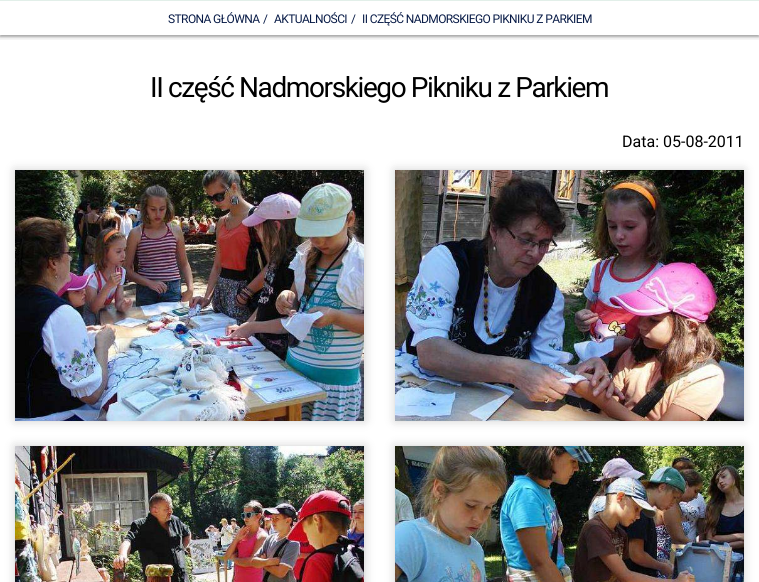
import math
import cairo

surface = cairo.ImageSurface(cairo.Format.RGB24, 759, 582)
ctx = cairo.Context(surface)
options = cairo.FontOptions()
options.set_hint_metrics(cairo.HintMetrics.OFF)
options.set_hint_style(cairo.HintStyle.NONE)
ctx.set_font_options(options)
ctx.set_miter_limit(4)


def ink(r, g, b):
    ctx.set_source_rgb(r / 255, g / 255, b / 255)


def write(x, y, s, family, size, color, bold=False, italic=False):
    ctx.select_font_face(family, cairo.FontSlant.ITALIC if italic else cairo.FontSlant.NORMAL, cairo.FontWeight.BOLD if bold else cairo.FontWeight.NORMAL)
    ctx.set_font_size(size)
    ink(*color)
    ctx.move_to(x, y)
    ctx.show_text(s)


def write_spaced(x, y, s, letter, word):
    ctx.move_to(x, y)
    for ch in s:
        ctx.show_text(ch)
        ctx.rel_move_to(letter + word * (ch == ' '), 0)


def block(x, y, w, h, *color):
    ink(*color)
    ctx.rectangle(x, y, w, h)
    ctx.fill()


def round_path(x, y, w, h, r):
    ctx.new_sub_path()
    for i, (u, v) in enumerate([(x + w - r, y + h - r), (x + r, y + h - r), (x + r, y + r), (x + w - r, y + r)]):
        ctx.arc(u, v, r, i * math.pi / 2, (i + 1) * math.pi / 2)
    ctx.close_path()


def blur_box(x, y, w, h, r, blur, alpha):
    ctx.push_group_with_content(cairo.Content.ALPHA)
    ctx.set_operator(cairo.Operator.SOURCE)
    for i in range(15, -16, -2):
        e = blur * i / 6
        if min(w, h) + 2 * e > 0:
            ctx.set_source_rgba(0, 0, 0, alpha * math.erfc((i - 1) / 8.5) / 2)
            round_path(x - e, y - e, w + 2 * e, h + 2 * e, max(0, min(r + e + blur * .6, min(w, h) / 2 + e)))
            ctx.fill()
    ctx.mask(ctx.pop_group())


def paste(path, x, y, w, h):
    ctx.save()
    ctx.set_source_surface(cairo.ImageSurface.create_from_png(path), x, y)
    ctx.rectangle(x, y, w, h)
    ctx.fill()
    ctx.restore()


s1 = dict(family="Roboto", size=16, color=(0, 0, 0))

ink(245, 245, 245)
ctx.paint()
block(0, 40, 759, 542, 255, 255, 255)
ink(0, 0, 0)
blur_box(0, 2, 759, 35, 0, 1, 0.3)
block(0, 1, 759, 34, 255, 255, 255)
block(0, 0, 759, 1, 226, 239, 233)
ctx.select_font_face("Roboto")
ctx.set_font_size(12)
ink(8, 27, 71)
write_spaced(168, 23, "STRONA GŁÓWNA", -0.6, 0)
write_spaced(263, 23, "/", -0.6, 0)
write_spaced(274, 23, "AKTUALNOŚCI", -0.6, 0)
write_spaced(351, 23, "/", -0.6, 0)
write_spaced(362, 23, "II CZĘŚĆ NADMORSKIEGO PIKNIKU Z PARKIEM", -0.6, 0)
ctx.set_font_size(28)
ink(0, 0, 0)
write_spaced(150, 97, "II część Nadmorskiego Pikniku z Parkiem", -1.4, 0)
write(622, 147, "Data: 05-08-2011", **s1)
ink(10, 10, 10)
blur_box(15, 170, 350, 251, 0, 5, 0.2)
paste("pic1.png", 15, 170, 349, 251)
blur_box(395, 170, 349, 251, 0, 5, 0.2)
paste("pic2.png", 395, 170, 349, 251)
blur_box(15, 446, 350, 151, 0, 5, 0.2)
paste("pic3.png", 15, 446, 349, 136)
blur_box(395, 446, 349, 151, 0, 5, 0.2)
paste("pic4.png", 395, 446, 349, 136)
surface.write_to_png("screenshot.png")
